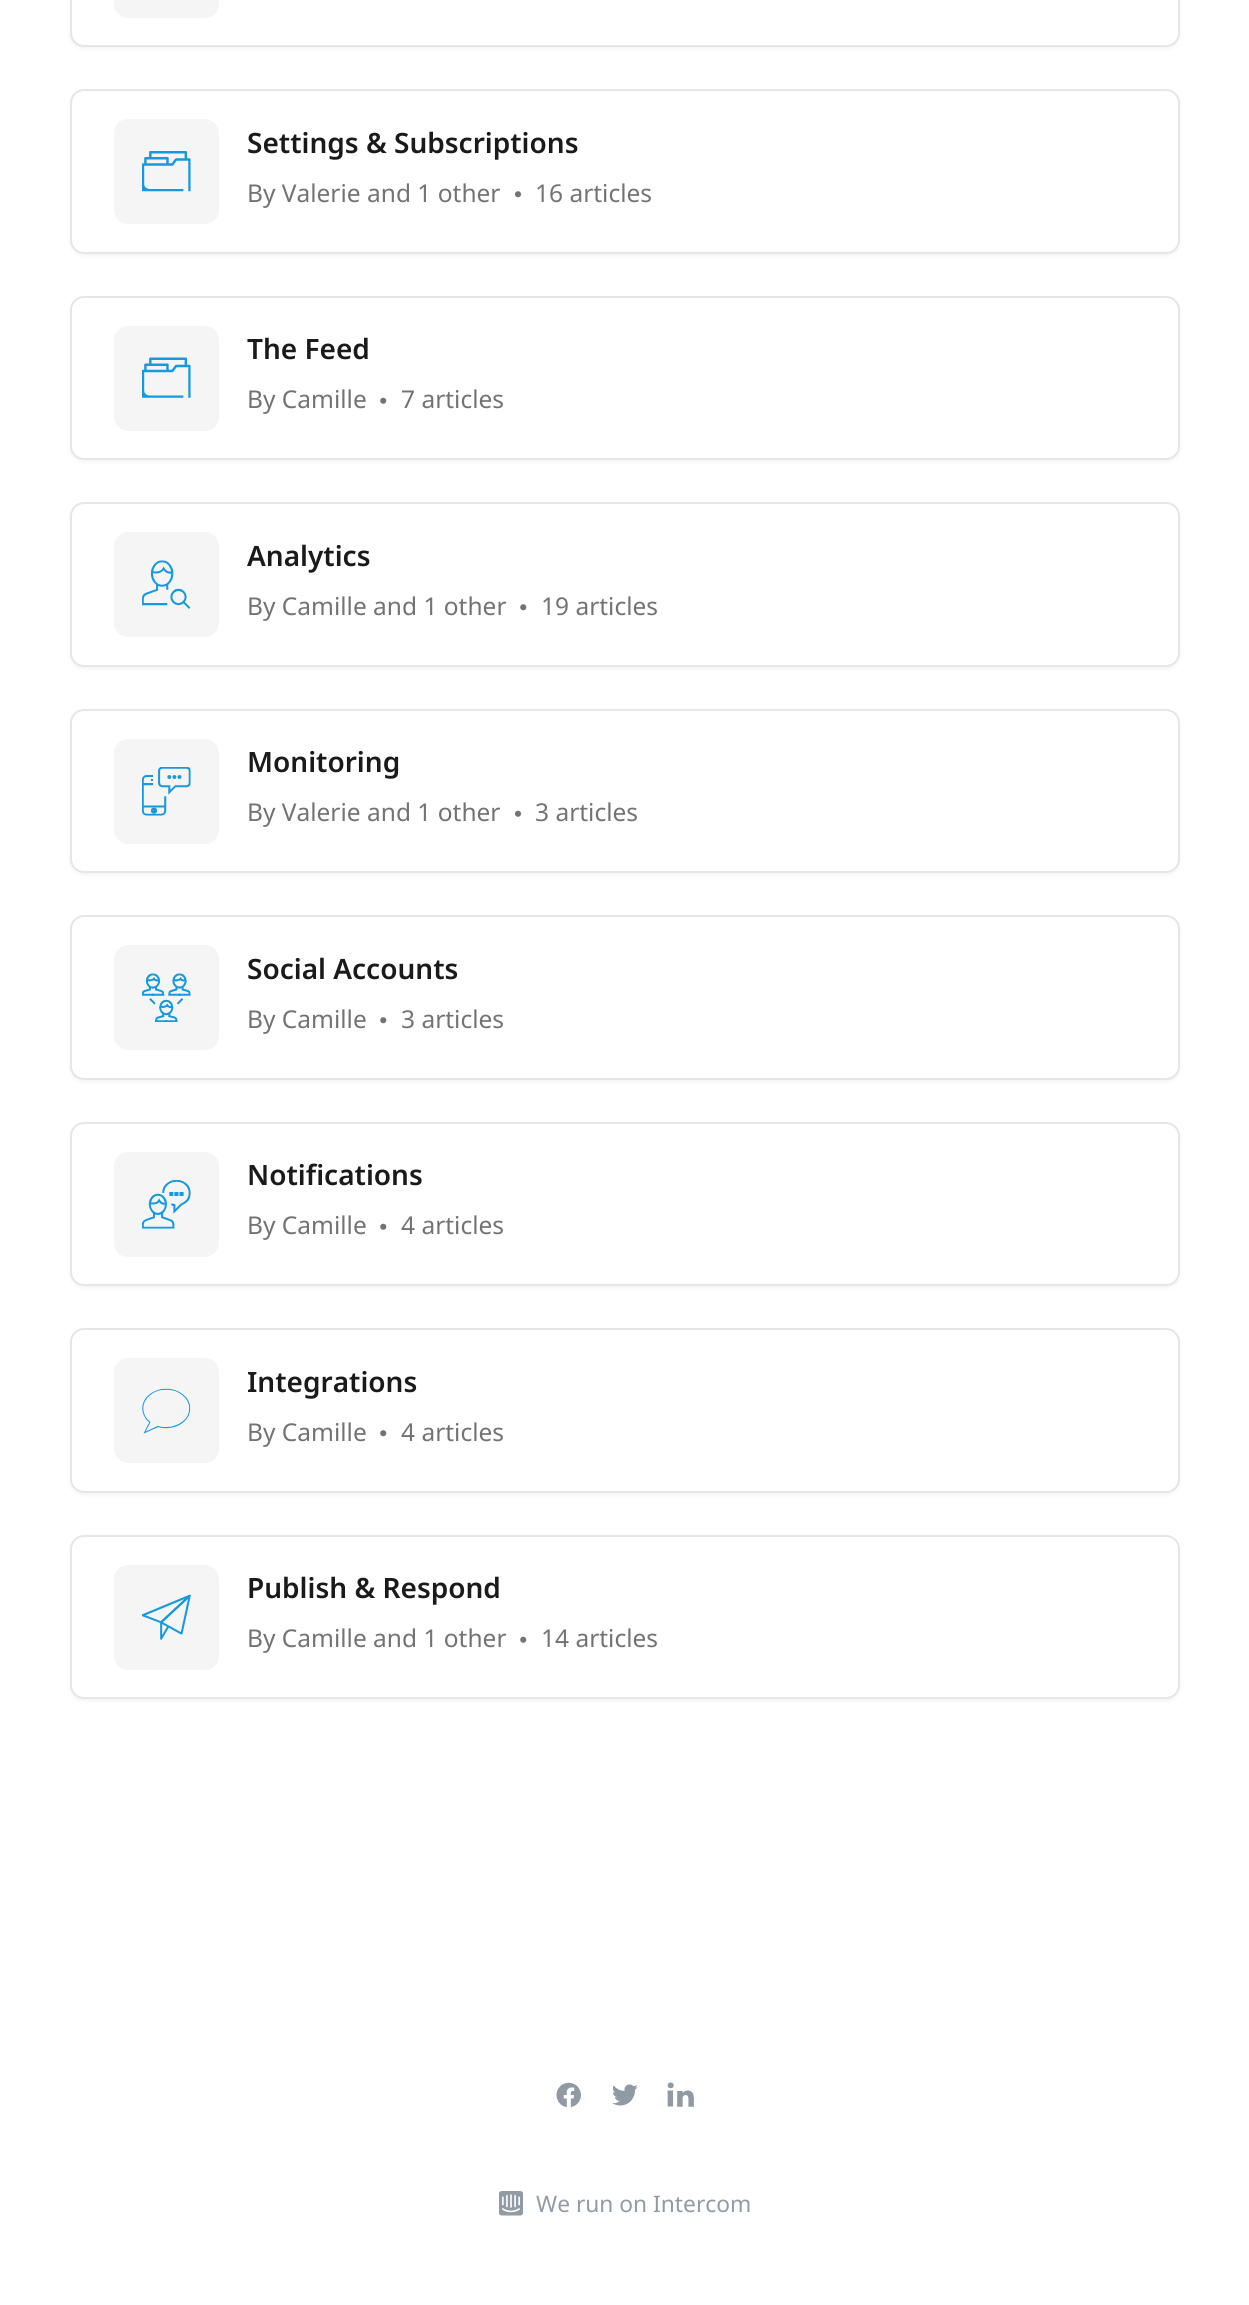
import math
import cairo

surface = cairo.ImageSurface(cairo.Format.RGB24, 1249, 2305)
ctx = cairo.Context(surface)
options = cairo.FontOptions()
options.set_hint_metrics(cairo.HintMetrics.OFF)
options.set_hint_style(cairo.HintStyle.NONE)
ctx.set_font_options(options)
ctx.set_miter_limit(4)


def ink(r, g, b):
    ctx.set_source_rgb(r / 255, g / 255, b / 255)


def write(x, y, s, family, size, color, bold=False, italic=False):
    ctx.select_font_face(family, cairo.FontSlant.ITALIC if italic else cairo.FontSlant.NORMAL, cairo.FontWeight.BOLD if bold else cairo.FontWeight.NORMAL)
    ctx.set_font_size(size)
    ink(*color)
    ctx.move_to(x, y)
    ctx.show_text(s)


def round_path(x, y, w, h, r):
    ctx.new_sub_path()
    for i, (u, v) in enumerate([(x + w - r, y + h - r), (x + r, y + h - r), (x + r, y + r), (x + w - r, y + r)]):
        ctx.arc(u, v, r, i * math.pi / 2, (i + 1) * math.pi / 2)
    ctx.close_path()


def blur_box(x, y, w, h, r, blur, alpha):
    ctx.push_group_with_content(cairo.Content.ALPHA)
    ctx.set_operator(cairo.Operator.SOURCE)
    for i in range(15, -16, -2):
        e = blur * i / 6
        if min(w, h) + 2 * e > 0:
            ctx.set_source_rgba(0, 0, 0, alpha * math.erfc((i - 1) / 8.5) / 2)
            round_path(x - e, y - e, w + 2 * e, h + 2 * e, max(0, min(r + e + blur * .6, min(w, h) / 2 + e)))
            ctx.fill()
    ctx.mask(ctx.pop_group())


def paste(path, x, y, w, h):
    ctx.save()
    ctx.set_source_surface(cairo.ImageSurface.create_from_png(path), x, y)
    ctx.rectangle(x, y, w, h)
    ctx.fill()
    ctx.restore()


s1 = dict(family="Noto Sans SemiBold", size=28, color=(26, 26, 26))
s2 = dict(family="Noto Sans", size=24.5, color=(115, 115, 115))
s3 = dict(family="Noto Sans", size=22.75, color=(146, 155, 165))

ink(255, 255, 255)
ctx.paint()
ink(0, 0, 0)
blur_box(70, -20, 1110, 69, 14, 2, 0.05)
ink(255, 255, 255)
round_path(71, -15, 1108, 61, 13)
ctx.fill_preserve()
ink(230, 230, 230)
ctx.stroke()
ink(245, 245, 245)
round_path(114, -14, 105, 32, 14)
ctx.fill()
ink(0, 0, 0)
blur_box(70, 91, 1110, 165, 14, 2, 0.05)
ink(255, 255, 255)
round_path(71, 90, 1108, 163, 13)
ctx.fill_preserve()
ink(230, 230, 230)
ctx.stroke()
ink(245, 245, 245)
round_path(114, 119, 105, 105, 14)
ctx.fill()
paste("pic1.png", 142, 151, 49, 41)
write(247, 153, "Settings & Subscriptions", **s1)
write(247, 202, "By Valerie and 1 other", **s2)
paste("pic2.png", 515, 191, 6, 7)
write(535, 202, "16 articles", **s2)
ink(0, 0, 0)
blur_box(70, 298, 1110, 164, 14, 2, 0.05)
ink(255, 255, 255)
round_path(71, 297, 1108, 162, 13)
ctx.fill_preserve()
ink(230, 230, 230)
ctx.stroke()
ink(245, 245, 245)
round_path(114, 326, 105, 105, 14)
ctx.fill()
paste("pic3.png", 142, 357, 49, 41)
write(247, 359, "The Feed", **s1)
write(247, 408, "By Camille", **s2)
paste("pic4.png", 380, 397, 7, 7)
write(401, 408, "7 articles", **s2)
ink(0, 0, 0)
blur_box(70, 504, 1110, 165, 14, 2, 0.05)
ink(255, 255, 255)
round_path(71, 503, 1108, 163, 13)
ctx.fill_preserve()
ink(230, 230, 230)
ctx.stroke()
ink(245, 245, 245)
round_path(114, 532, 105, 105, 14)
ctx.fill()
paste("pic5.png", 142, 560, 49, 49)
write(247, 566, "Analytics", **s1)
write(247, 615, "By Camille and 1 other", **s2)
paste("pic6.png", 520, 604, 7, 7)
write(541, 615, "19 articles", **s2)
ink(0, 0, 0)
blur_box(70, 711, 1110, 164, 14, 2, 0.05)
ink(255, 255, 255)
round_path(71, 710, 1108, 162, 13)
ctx.fill_preserve()
ink(230, 230, 230)
ctx.stroke()
ink(245, 245, 245)
round_path(114, 739, 105, 105, 14)
ctx.fill()
paste("pic7.png", 142, 767, 49, 49)
write(247, 772, "Monitoring", **s1)
write(247, 821, "By Valerie and 1 other", **s2)
paste("pic8.png", 515, 810, 6, 7)
write(535, 821, "3 articles", **s2)
ink(0, 0, 0)
blur_box(70, 917, 1110, 165, 14, 2, 0.05)
ink(255, 255, 255)
round_path(71, 916, 1108, 163, 13)
ctx.fill_preserve()
ink(230, 230, 230)
ctx.stroke()
ink(245, 245, 245)
round_path(114, 945, 105, 105, 14)
ctx.fill()
paste("pic9.png", 142, 973, 49, 49)
write(247, 979, "Social Accounts", **s1)
write(247, 1028, "By Camille", **s2)
paste("pic6.png", 380, 1017, 7, 7)
write(401, 1028, "3 articles", **s2)
ink(0, 0, 0)
blur_box(70, 1124, 1110, 164, 14, 2, 0.05)
ink(255, 255, 255)
round_path(71, 1123, 1108, 162, 13)
ctx.fill_preserve()
ink(230, 230, 230)
ctx.stroke()
ink(245, 245, 245)
round_path(114, 1152, 105, 105, 14)
ctx.fill()
paste("pic10.png", 142, 1180, 49, 49)
write(247, 1185, "Notifications", **s1)
write(247, 1234, "By Camille", **s2)
paste("pic4.png", 380, 1223, 7, 7)
write(401, 1234, "4 articles", **s2)
ink(0, 0, 0)
blur_box(70, 1330, 1110, 165, 14, 2, 0.05)
ink(255, 255, 255)
round_path(71, 1329, 1108, 163, 13)
ctx.fill_preserve()
ink(230, 230, 230)
ctx.stroke()
ink(245, 245, 245)
round_path(114, 1358, 105, 105, 14)
ctx.fill()
paste("pic11.png", 142, 1388, 49, 46)
write(247, 1392, "Integrations", **s1)
write(247, 1441, "By Camille", **s2)
paste("pic6.png", 380, 1430, 7, 7)
write(401, 1441, "4 articles", **s2)
ink(0, 0, 0)
blur_box(70, 1537, 1110, 164, 14, 2, 0.05)
ink(255, 255, 255)
round_path(71, 1536, 1108, 162, 13)
ctx.fill_preserve()
ink(230, 230, 230)
ctx.stroke()
ink(245, 245, 245)
round_path(114, 1565, 105, 105, 14)
ctx.fill()
paste("pic12.png", 142, 1594, 49, 46)
write(247, 1598, "Publish & Respond", **s1)
write(247, 1647, "By Camille and 1 other", **s2)
paste("pic4.png", 520, 1636, 7, 7)
write(541, 1647, "14 articles", **s2)
paste("pic13.png", 556, 2082, 25, 26)
paste("pic14.png", 612, 2084, 26, 22)
paste("pic15.png", 667, 2082, 27, 25)
paste("pic16.png", 499, 2191, 24, 25)
write(536, 2212, "We run on Intercom", **s3)
surface.write_to_png("screenshot.png")
